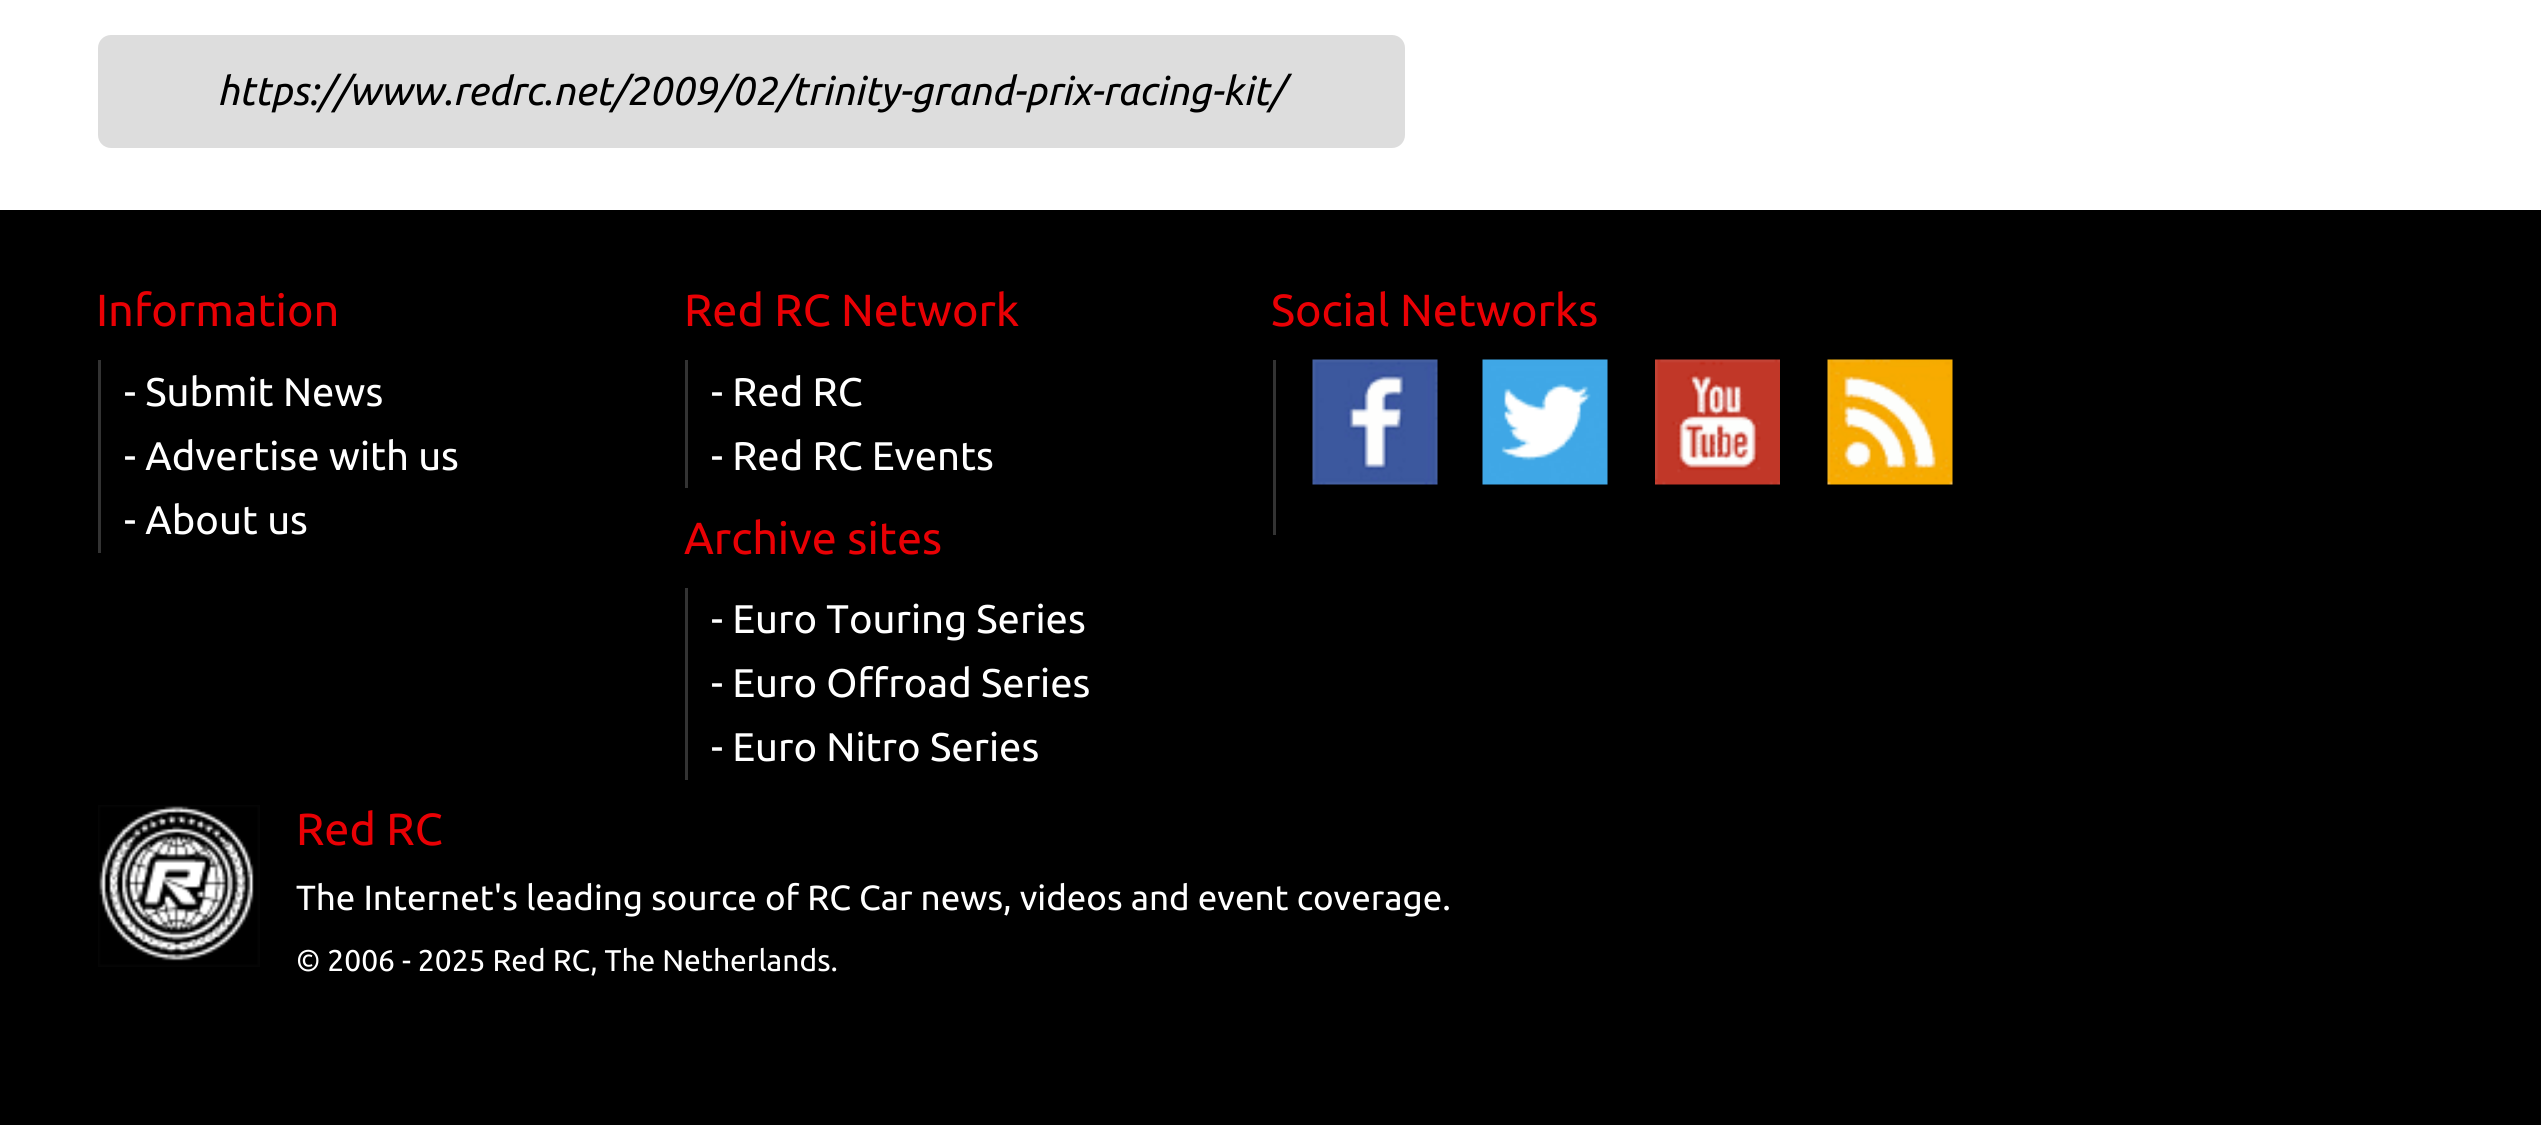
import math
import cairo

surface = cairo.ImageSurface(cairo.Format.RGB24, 2541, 1125)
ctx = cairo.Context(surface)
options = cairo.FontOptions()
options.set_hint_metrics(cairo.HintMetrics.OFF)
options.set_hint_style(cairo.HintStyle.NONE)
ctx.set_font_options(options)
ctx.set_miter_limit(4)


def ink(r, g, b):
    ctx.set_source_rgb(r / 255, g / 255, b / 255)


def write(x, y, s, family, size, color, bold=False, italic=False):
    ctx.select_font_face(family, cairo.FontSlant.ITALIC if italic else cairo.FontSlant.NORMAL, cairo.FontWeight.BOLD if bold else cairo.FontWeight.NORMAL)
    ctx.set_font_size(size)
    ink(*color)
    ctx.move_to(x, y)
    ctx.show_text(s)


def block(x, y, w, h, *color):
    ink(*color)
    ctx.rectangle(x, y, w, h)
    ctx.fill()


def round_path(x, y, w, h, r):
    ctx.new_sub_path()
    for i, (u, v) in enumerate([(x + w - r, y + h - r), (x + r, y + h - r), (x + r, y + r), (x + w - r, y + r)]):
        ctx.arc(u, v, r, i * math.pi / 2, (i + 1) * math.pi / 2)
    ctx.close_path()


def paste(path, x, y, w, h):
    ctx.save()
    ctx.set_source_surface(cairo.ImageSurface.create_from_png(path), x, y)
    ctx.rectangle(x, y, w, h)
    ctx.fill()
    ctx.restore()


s1 = dict(family="Ubuntu", size=40, color=(0, 0, 0), italic=True)
s2 = dict(family="Ubuntu", size=45, color=(233, 0, 4))
s3 = dict(family="Ubuntu", size=40, color=(255, 255, 255))
s4 = dict(family="Ubuntu", size=35, color=(255, 255, 255))
s5 = dict(family="Ubuntu", size=30, color=(255, 255, 255))

ink(255, 255, 255)
ctx.paint()
ink(221, 221, 221)
round_path(98, 35, 1307, 113, 13)
ctx.fill()
write(217, 105, "https://www.redrc.net/2009/02/trinity-grand-prix-racing-kit/", **s1)
block(0, 210, 2541, 915, 0, 0, 0)
write(96, 326, "Information", **s2)
block(98, 360, 3, 193, 51, 51, 51)
write(124, 406, "- Submit News", **s3)
write(124, 470, "- Advertise with us", **s3)
write(124, 534, "- About us", **s3)
write(684, 326, "Red RC Network", **s2)
block(685, 360, 3, 128, 51, 51, 51)
write(711, 406, "- Red RC", **s3)
write(711, 470, "- Red RC Events", **s3)
write(684, 554, "Archive sites", **s2)
block(685, 588, 3, 192, 51, 51, 51)
write(711, 633, "- Euro Touring Series", **s3)
write(711, 697, "- Euro Offroad Series", **s3)
write(711, 761, "- Euro Nitro Series", **s3)
write(1271, 326, "Social Networks", **s2)
block(1273, 360, 3, 175, 51, 51, 51)
paste("pic1.png", 1312, 359, 126, 126)
paste("pic2.png", 1482, 359, 126, 126)
paste("pic3.png", 1655, 359, 125, 126)
paste("pic4.png", 1827, 359, 126, 126)
paste("pic5.png", 98, 805, 162, 162)
write(296, 845, "Red RC", **s2)
write(296, 910, "The Internet's leading source of RC Car news, videos and event coverage.", **s4)
write(296, 971, "© 2006 - 2025 Red RC, The Netherlands.", **s5)
surface.write_to_png("screenshot.png")
